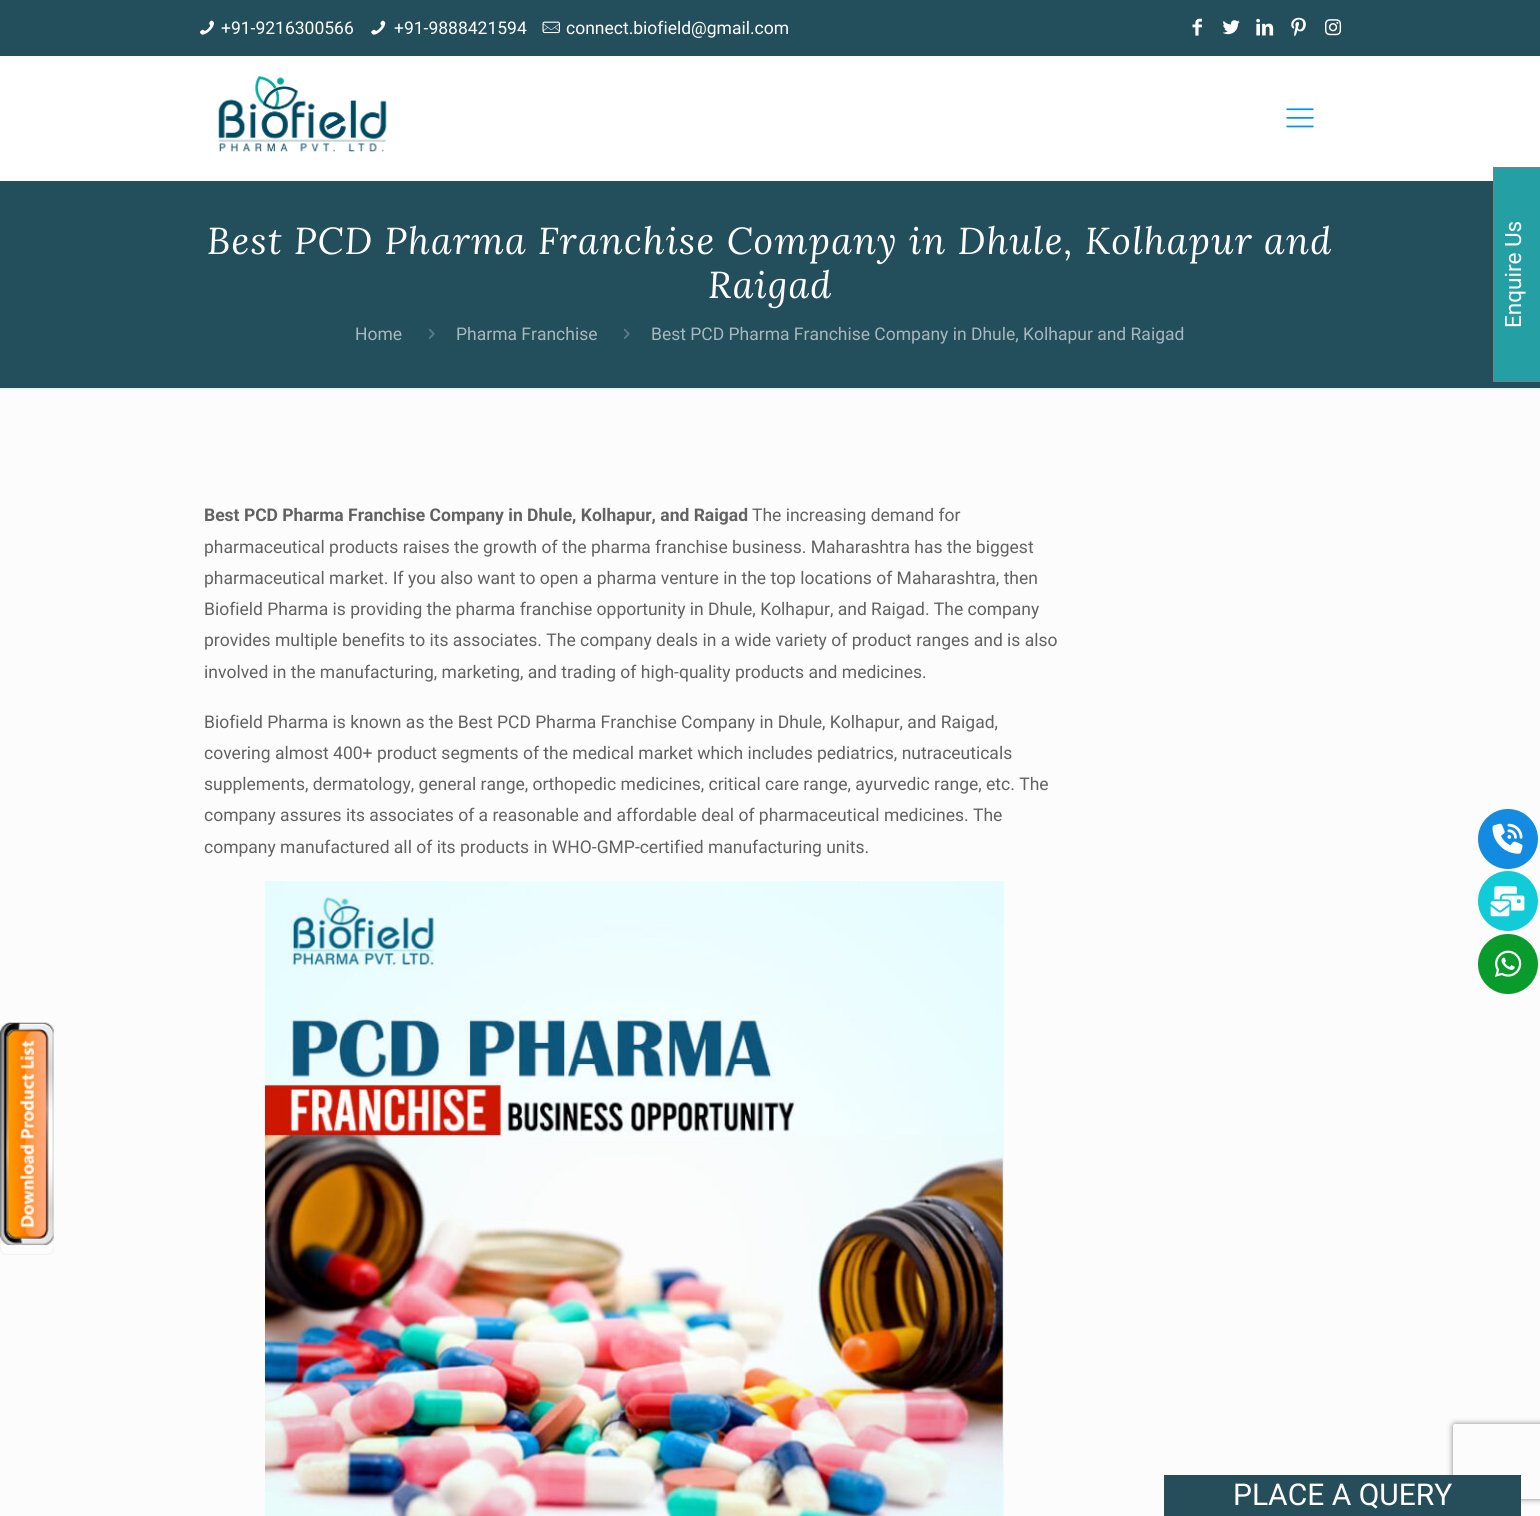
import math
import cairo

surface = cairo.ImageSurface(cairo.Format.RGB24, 1540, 1516)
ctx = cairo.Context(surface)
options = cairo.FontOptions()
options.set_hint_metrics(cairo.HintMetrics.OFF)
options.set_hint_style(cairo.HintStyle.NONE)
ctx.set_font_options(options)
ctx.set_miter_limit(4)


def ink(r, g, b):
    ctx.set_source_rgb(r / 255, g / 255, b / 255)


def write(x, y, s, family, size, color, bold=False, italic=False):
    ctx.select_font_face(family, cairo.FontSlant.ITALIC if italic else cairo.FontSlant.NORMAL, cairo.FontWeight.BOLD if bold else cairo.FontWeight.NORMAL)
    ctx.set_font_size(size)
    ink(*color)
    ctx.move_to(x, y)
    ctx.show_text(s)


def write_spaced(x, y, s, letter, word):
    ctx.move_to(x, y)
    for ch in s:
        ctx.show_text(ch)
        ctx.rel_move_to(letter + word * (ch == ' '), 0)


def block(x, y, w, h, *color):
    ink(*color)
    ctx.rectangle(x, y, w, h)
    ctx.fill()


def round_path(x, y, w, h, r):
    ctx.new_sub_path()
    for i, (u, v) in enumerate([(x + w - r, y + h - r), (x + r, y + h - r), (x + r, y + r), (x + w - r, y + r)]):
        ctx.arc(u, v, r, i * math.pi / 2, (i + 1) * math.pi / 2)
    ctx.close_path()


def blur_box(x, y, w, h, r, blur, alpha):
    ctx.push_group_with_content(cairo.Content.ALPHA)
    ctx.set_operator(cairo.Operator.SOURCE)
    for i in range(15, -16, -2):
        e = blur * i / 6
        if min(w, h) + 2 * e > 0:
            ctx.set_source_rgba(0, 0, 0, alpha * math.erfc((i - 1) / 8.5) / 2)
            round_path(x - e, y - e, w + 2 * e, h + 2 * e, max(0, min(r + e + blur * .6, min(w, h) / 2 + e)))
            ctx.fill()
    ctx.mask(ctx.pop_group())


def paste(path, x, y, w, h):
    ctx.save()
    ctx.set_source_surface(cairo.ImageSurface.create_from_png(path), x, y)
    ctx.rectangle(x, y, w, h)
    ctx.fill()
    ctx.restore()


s1 = dict(family="Roboto", size=17.5, color=(255, 255, 255))
s2 = dict(family="Roboto", size=17.5, color=(167, 184, 189))
s3 = dict(family="Roboto", size=17.5, color=(98, 98, 98), bold=True)
s4 = dict(family="Roboto", size=17.5, color=(98, 98, 98))
s5 = dict(family="Roboto", size=22.5, color=(255, 255, 255))
s6 = dict(family="Roboto", size=30, color=(255, 255, 255))

ink(252, 252, 252)
ctx.paint()
block(0, 0, 1540, 56, 35, 78, 91)
paste("pic1.png", 200, 20, 14, 15)
write(221, 34, "+91-9216300566", **s1)
paste("pic2.png", 371, 20, 15, 15)
write(394, 34, "+91-9888421594", **s1)
paste("pic3.png", 542, 21, 18, 13)
write(566, 34, "connect.biofield@gmail.com", **s1)
paste("pic4.png", 1192, 18, 10, 18)
paste("pic5.png", 1222, 20, 18, 15)
paste("pic6.png", 1256, 18, 18, 18)
paste("pic7.png", 1291, 17, 15, 20)
paste("pic8.png", 1325, 19, 17, 17)
block(0, 56, 1540, 125, 255, 255, 255)
paste("pic9.png", 218, 76, 169, 76)
paste("pic10.png", 1286, 108, 28, 20)
block(0, 181, 1540, 207, 35, 78, 91)
ctx.select_font_face("Lora", cairo.FontSlant.ITALIC)
ctx.set_font_size(37.5)
ink(255, 255, 255)
write_spaced(207, 254, "Best PCD Pharma Franchise Company in Dhule, Kolhapur and", 1.25, 0)
write_spaced(708, 298, "Raigad", 1.25, 0)
write(355, 340, "Home", **s2)
paste("pic11.png", 428, 328, 7, 11)
write(456, 340, "Pharma Franchise", **s2)
paste("pic11.png", 623, 328, 7, 11)
write(651, 340, "Best PCD Pharma Franchise Company in Dhule, Kolhapur and Raigad", **s2)
paste("pic12.png", 0, 388, 1540, 2)
write(204, 521, "Best PCD Pharma Franchise Company in Dhule, Kolhapur, and Raigad", **s3)
write(752, 521, "The increasing demand for", **s4)
write(204, 553, "pharmaceutical products raises the growth of the pharma franchise business. Maharashtra has the biggest", **s4)
write(204, 584, "pharmaceutical market. If you also want to open a pharma venture in the top locations of Maharashtra, then", **s4)
write(204, 615, "Biofield Pharma is providing the pharma franchise opportunity in Dhule, Kolhapur, and Raigad. The company", **s4)
write(204, 646, "provides multiple benefits to its associates. The company deals in a wide variety of product ranges and is also", **s4)
write(204, 678, "involved in the manufacturing, marketing, and trading of high-quality products and medicines.", **s4)
write(204, 728, "Biofield Pharma is known as the Best PCD Pharma Franchise Company in Dhule, Kolhapur, and Raigad,", **s4)
write(204, 759, "covering almost 400+ product segments of the medical market which includes pediatrics, nutraceuticals", **s4)
write(204, 790, "supplements, dermatology, general range, orthopedic medicines, critical care range, ayurvedic range, etc. The", **s4)
write(204, 821, "company assures its associates of a reasonable and affordable deal of pharmaceutical medicines. The", **s4)
write(204, 853, "company manufactured all of its products in WHO-GMP-certified manufacturing units.", **s4)
paste("pic13.png", 265, 881, 739, 635)
block(1494, 168, 46, 213, 36, 159, 164)
block(1493, 167, 1, 215, 127, 127, 127)
block(1493, 167, 47, 1, 127, 127, 127)
block(1493, 381, 47, 1, 127, 127, 127)
ctx.save()
ctx.translate(1521, 328)
ctx.rotate(-90 * math.pi / 180)
write(0, 0, "Enquire Us", **s5)
ctx.restore()
ink(18, 139, 224)
ctx.new_path()
ctx.arc(1508, 839, 30, 0, 2 * math.pi)
ctx.fill()
paste("pic14.png", 1492, 823, 31, 31)
ink(17, 203, 216)
ctx.arc(1508, 901, 30, 0, 2 * math.pi)
ctx.fill()
paste("pic15.png", 1490, 886, 35, 31)
ink(9, 155, 43)
ctx.arc(1508, 964, 30, 0, 2 * math.pi)
ctx.fill()
paste("pic16.png", 1495, 950, 27, 27)
round_path(0.5, 1023.5, 53, 231, 5.5)
ink(244, 244, 244)
ctx.set_line_width(1)
ctx.stroke()
paste("pic17.png", 0, 1022, 54, 223)
ctx.save()
ctx.set_fill_rule(cairo.FillRule.EVEN_ODD)
ctx.new_path()
ctx.move_to(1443, 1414)
ctx.line_to(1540, 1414)
ctx.line_to(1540, 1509)
ctx.line_to(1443, 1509)
ctx.close_path()
ctx.move_to(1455.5, 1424)
ctx.line_to(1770.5, 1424)
ctx.curve_to(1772, 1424, 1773, 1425, 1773, 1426.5)
ctx.line_to(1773, 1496.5)
ctx.curve_to(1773, 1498, 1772, 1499, 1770.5, 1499)
ctx.line_to(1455.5, 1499)
ctx.curve_to(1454, 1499, 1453, 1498, 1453, 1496.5)
ctx.line_to(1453, 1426.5)
ctx.curve_to(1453, 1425, 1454, 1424, 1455.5, 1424)
ctx.close_path()
ctx.clip()
ink(128, 128, 128)
blur_box(1453, 1424, 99, 75, 2.5, 3, 1)
ctx.restore()
block(1164, 1475, 357, 41, 38, 78, 90)
write(1233, 1505, "PLACE A QUERY", **s6)
surface.write_to_png("screenshot.png")
